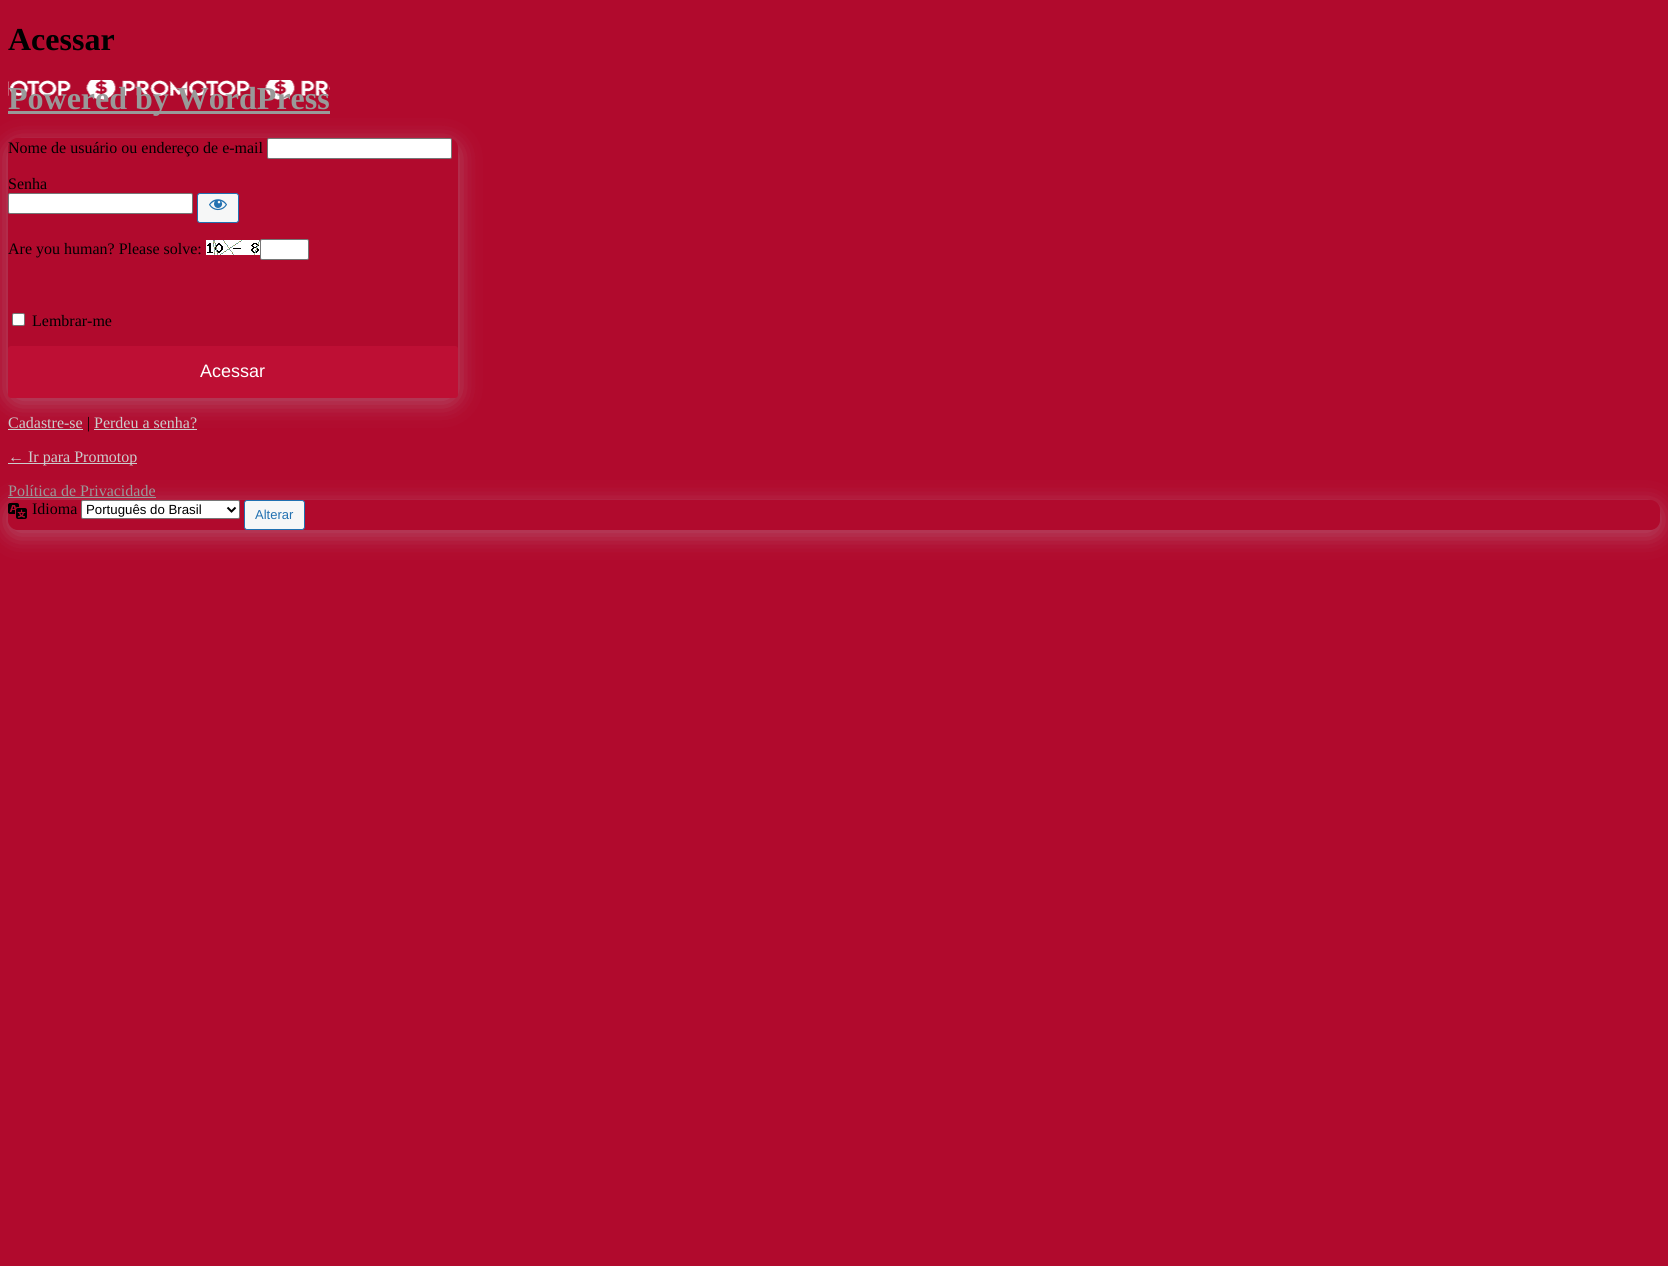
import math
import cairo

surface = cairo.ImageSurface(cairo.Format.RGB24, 1668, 1266)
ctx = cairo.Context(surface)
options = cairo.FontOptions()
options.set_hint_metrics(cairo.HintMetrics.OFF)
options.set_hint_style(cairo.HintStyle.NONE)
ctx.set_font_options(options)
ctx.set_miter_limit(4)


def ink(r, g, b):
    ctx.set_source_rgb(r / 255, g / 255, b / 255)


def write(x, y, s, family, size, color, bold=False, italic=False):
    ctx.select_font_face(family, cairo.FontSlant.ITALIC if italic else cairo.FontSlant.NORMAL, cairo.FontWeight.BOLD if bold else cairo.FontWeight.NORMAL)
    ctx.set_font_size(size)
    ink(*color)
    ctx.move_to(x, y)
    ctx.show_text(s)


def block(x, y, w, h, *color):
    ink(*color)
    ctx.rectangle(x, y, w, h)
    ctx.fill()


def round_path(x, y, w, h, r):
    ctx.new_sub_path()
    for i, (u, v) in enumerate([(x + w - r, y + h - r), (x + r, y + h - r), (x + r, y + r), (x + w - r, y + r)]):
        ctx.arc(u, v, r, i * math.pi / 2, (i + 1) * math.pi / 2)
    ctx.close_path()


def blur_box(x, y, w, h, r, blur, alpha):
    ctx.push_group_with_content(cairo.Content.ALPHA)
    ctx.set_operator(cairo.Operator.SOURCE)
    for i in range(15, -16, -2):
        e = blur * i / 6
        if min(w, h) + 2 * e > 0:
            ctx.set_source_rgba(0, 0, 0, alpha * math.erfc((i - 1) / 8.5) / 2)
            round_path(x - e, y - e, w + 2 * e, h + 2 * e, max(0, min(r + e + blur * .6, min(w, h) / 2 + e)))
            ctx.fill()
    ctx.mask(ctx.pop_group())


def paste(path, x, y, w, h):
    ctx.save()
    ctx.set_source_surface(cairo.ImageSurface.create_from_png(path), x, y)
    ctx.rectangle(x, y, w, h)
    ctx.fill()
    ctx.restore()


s1 = dict(family="Liberation Serif", size=32, color=(0, 0, 0), bold=True)
s2 = dict(family="Liberation Serif", size=32, color=(153, 153, 153), bold=True)
s3 = dict(family="Liberation Serif", size=16, color=(0, 0, 0))
s4 = dict(family="Liberation Sans", size=18, color=(255, 255, 255))
s5 = dict(family="Liberation Serif", size=16, color=(204, 204, 204))
s6 = dict(family="Liberation Serif", size=16, color=(153, 153, 153))
s7 = dict(family="Liberation Sans", size=13.25, color=(0, 0, 0))
s8 = dict(family="Liberation Sans", size=13, color=(34, 113, 177))

ink(177, 10, 45)
ctx.paint()
write(8, 50, "Acessar", **s1)
paste("pic1.png", 8, 80, 322, 20)
ctx.save()
ctx.set_fill_rule(cairo.FillRule.EVEN_ODD)
ctx.new_path()
ctx.move_to(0, 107)
ctx.line_to(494, 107)
ctx.line_to(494, 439)
ctx.line_to(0, 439)
ctx.close_path()
ctx.move_to(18, 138)
ctx.line_to(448, 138)
ctx.curve_to(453.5, 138, 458, 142.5, 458, 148)
ctx.line_to(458, 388)
ctx.curve_to(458, 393.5, 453.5, 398, 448, 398)
ctx.line_to(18, 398)
ctx.curve_to(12.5, 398, 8, 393.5, 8, 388)
ctx.line_to(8, 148)
ctx.curve_to(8, 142.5, 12.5, 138, 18, 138)
ctx.close_path()
ctx.clip()
ink(188, 207, 219)
blur_box(8, 143, 450, 260, 10, 11.5, 0.35)
ctx.restore()
block(8, 111, 322, 3, 153, 153, 153)
write(8, 109, "Powered by WordPress", **s2)
write(8, 153, "Nome de usuário ou endereço de e-mail", **s3)
ink(255, 255, 255)
round_path(267.5, 138.5, 184, 20, 1.5)
ctx.fill_preserve()
ink(118, 118, 118)
ctx.set_line_width(1)
ctx.stroke()
write(8, 189, "Senha", **s3)
ink(255, 255, 255)
round_path(8.5, 193.5, 184, 20, 1.5)
ctx.fill_preserve()
ink(118, 118, 118)
ctx.stroke()
ink(246, 247, 247)
round_path(197.5, 193.5, 41, 29, 2.5)
ctx.fill_preserve()
ink(34, 113, 177)
ctx.stroke()
paste("pic2.png", 209, 199, 18, 12)
write(8, 254, "Are you human? Please solve:", **s3)
paste("pic3.png", 206, 240, 54, 15)
ink(255, 255, 255)
round_path(260.5, 239.5, 48, 20, 1.5)
ctx.fill_preserve()
ink(118, 118, 118)
ctx.stroke()
ink(255, 255, 255)
round_path(12.5, 313.5, 12, 12, 1.5)
ctx.fill_preserve()
ink(118, 118, 118)
ctx.stroke()
write(32, 326, "Lembrar-me", **s3)
ink(190, 15, 52)
round_path(8, 346, 450, 52, 3)
ctx.fill()
write(200, 377, "Acessar", **s4)
write(8, 428, "Cadastre-se", **s5)
block(8, 429, 75, 1, 204, 204, 204)
write(87, 428, "|", **s3)
write(94, 428, "Perdeu a senha?", **s5)
block(94, 429, 103, 1, 204, 204, 204)
block(8, 463, 129, 1, 204, 204, 204)
write(8, 462, "← Ir para Promotop", **s5)
ctx.save()
ctx.set_fill_rule(cairo.FillRule.EVEN_ODD)
ctx.new_path()
ctx.move_to(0, 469)
ctx.line_to(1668, 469)
ctx.line_to(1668, 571)
ctx.line_to(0, 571)
ctx.close_path()
ctx.move_to(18, 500)
ctx.line_to(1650, 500)
ctx.curve_to(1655.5, 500, 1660, 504.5, 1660, 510)
ctx.line_to(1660, 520)
ctx.curve_to(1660, 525.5, 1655.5, 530, 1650, 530)
ctx.line_to(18, 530)
ctx.curve_to(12.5, 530, 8, 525.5, 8, 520)
ctx.line_to(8, 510)
ctx.curve_to(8, 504.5, 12.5, 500, 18, 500)
ctx.close_path()
ctx.clip()
ink(188, 207, 219)
blur_box(8, 505, 1652, 30, 10, 11.5, 0.35)
ctx.restore()
write(8, 496, "Política de Privacidade", **s6)
block(8, 497, 148, 1, 153, 153, 153)
paste("pic4.png", 8, 503, 19, 16)
write(32, 514, "Idioma", **s3)
ink(255, 255, 255)
round_path(81.5, 500.5, 158, 18, 1.5)
ctx.fill_preserve()
ink(118, 118, 118)
ctx.stroke()
ctx.new_path()
ctx.move_to(227.5, 507.5)
ctx.line_to(231.5, 511.5)
ctx.line_to(235.5, 507.5)
ink(0, 0, 0)
ctx.set_line_width(2)
ctx.stroke()
write(86, 514, "Português do Brasil", **s7)
ink(246, 247, 247)
round_path(244.5, 500.5, 60, 29, 2.5)
ctx.fill_preserve()
ink(34, 113, 177)
ctx.set_line_width(1)
ctx.stroke()
write(255, 519, "Alterar", **s8)
surface.write_to_png("screenshot.png")
